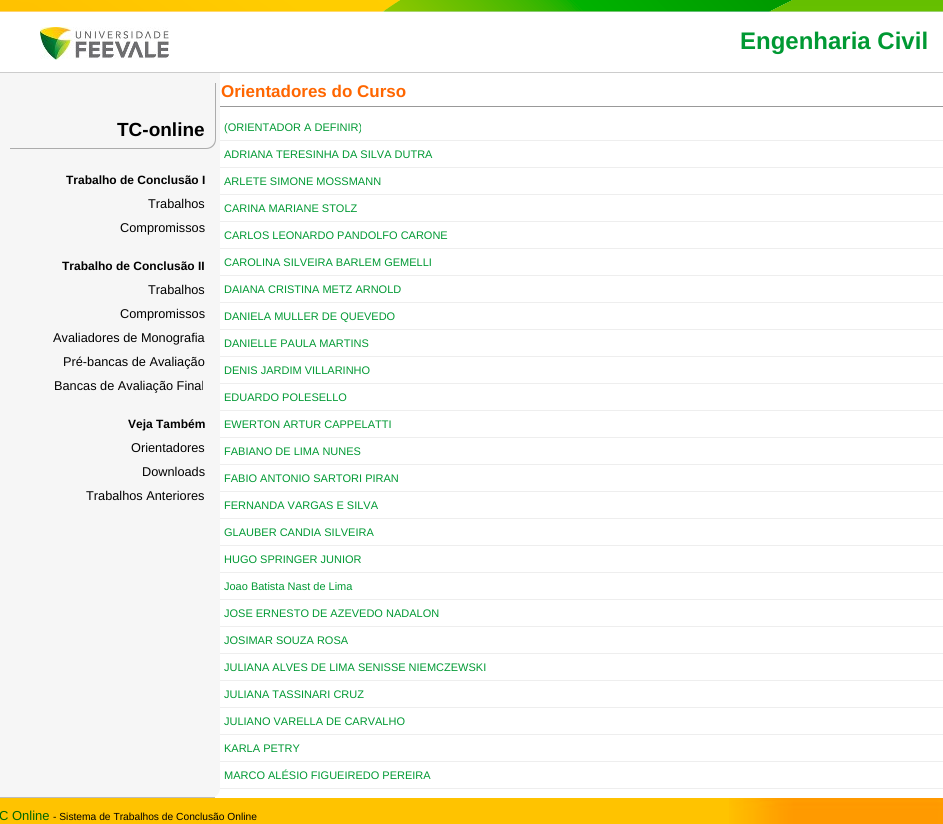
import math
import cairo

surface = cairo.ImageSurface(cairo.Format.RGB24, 943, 824)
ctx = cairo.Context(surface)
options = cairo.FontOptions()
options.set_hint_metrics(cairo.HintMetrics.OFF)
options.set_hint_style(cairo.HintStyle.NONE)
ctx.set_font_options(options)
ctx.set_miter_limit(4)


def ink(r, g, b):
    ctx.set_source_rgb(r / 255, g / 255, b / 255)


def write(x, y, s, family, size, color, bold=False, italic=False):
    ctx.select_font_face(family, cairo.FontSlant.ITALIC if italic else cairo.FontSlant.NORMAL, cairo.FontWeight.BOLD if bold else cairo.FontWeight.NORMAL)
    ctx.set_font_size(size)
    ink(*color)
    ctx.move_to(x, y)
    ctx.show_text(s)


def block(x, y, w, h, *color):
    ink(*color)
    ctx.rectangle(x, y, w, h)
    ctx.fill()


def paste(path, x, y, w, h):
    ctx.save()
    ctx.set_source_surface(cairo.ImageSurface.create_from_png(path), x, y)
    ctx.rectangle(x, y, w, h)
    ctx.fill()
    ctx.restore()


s1 = dict(family="Liberation Sans", size=24, color=(0, 153, 51), bold=True)
s2 = dict(family="Liberation Sans", size=19, color=(0, 0, 0), bold=True)
s3 = dict(family="Liberation Sans", size=12, color=(0, 0, 0), bold=True)
s4 = dict(family="Liberation Sans", size=12.75, color=(0, 0, 0))
s5 = dict(family="Liberation Sans", size=17, color=(255, 102, 0), bold=True)
s6 = dict(family="Liberation Sans", size=11, color=(0, 153, 51))
s7 = dict(family="Liberation Sans", size=13, color=(0, 102, 0))
s8 = dict(family="Liberation Sans", size=10.25, color=(0, 0, 0))

ink(255, 255, 255)
ctx.paint()
paste("pic1.png", 0, 0, 943, 12)
block(0, 72, 943, 1, 204, 204, 204)
paste("pic2.png", 40, 27, 129, 33)
write(740, 49, "Engenharia Civil", **s1)
ink(246, 246, 246)
ctx.new_path()
ctx.move_to(0, 73)
ctx.line_to(220, 73)
ctx.line_to(220, 788)
ctx.curve_to(220, 793.5, 215.5, 798, 210, 798)
ctx.line_to(0, 798)
ctx.close_path()
ctx.fill()
block(0, 797, 215, 1, 188, 188, 188)
ink(172, 172, 172)
ctx.set_fill_rule(cairo.FillRule.EVEN_ODD)
ctx.new_path()
ctx.move_to(10, 83)
ctx.line_to(216, 83)
ctx.line_to(216, 139)
ctx.curve_to(216, 145, 212, 149, 206, 149)
ctx.line_to(10, 149)
ctx.close_path()
ctx.move_to(10, 83)
ctx.line_to(215, 83)
ctx.line_to(215, 139)
ctx.curve_to(215, 144, 211, 148, 206, 148)
ctx.line_to(10, 148)
ctx.close_path()
ctx.fill()
write(117, 136, "TC-online", **s2)
write(66, 184, "Trabalho de Conclusão I", **s3)
write(148, 208, "Trabalhos", **s4)
write(120, 232, "Compromissos", **s4)
write(62, 270, "Trabalho de Conclusão II", **s3)
write(148, 294, "Trabalhos", **s4)
write(120, 318, "Compromissos", **s4)
write(53, 342, "Avaliadores de Monografia", **s4)
write(63, 366, "Pré-bancas de Avaliação", **s4)
write(54, 390, "Bancas de Avaliação Final", **s4)
write(128, 428, "Veja Também", **s3)
write(131, 452, "Orientadores", **s4)
write(142, 476, "Downloads", **s4)
write(86, 500, "Trabalhos Anteriores", **s4)
block(220, 106, 723, 1, 153, 153, 153)
write(221, 97, "Orientadores do Curso", **s5)
block(220, 140, 723, 1, 238, 238, 238)
write(224, 131, "(ORIENTADOR A DEFINIR)", **s6)
block(220, 167, 723, 1, 238, 238, 238)
write(224, 158, "ADRIANA TERESINHA DA SILVA DUTRA", **s6)
block(220, 194, 723, 1, 238, 238, 238)
write(224, 185, "ARLETE SIMONE MOSSMANN", **s6)
block(220, 221, 723, 1, 238, 238, 238)
write(224, 212, "CARINA MARIANE STOLZ", **s6)
block(220, 248, 723, 1, 238, 238, 238)
write(224, 239, "CARLOS LEONARDO PANDOLFO CARONE", **s6)
block(220, 275, 723, 1, 238, 238, 238)
write(224, 266, "CAROLINA SILVEIRA BARLEM GEMELLI", **s6)
block(220, 302, 723, 1, 238, 238, 238)
write(224, 293, "DAIANA CRISTINA METZ ARNOLD", **s6)
block(220, 329, 723, 1, 238, 238, 238)
write(224, 320, "DANIELA MULLER DE QUEVEDO", **s6)
block(220, 356, 723, 1, 238, 238, 238)
write(224, 347, "DANIELLE PAULA MARTINS", **s6)
block(220, 383, 723, 1, 238, 238, 238)
write(224, 374, "DENIS JARDIM VILLARINHO", **s6)
block(220, 410, 723, 1, 238, 238, 238)
write(224, 401, "EDUARDO POLESELLO", **s6)
block(220, 437, 723, 1, 238, 238, 238)
write(224, 428, "EWERTON ARTUR CAPPELATTI", **s6)
block(220, 464, 723, 1, 238, 238, 238)
write(224, 455, "FABIANO DE LIMA NUNES", **s6)
block(220, 491, 723, 1, 238, 238, 238)
write(224, 482, "FABIO ANTONIO SARTORI PIRAN", **s6)
block(220, 518, 723, 1, 238, 238, 238)
write(224, 509, "FERNANDA VARGAS E SILVA", **s6)
block(220, 545, 723, 1, 238, 238, 238)
write(224, 536, "GLAUBER CANDIA SILVEIRA", **s6)
block(220, 572, 723, 1, 238, 238, 238)
write(224, 563, "HUGO SPRINGER JUNIOR", **s6)
block(220, 599, 723, 1, 238, 238, 238)
write(224, 590, "Joao Batista Nast de Lima", **s6)
block(220, 626, 723, 1, 238, 238, 238)
write(224, 617, "JOSE ERNESTO DE AZEVEDO NADALON", **s6)
block(220, 653, 723, 1, 238, 238, 238)
write(224, 644, "JOSIMAR SOUZA ROSA", **s6)
block(220, 680, 723, 1, 238, 238, 238)
write(224, 671, "JULIANA ALVES DE LIMA SENISSE NIEMCZEWSKI", **s6)
block(220, 707, 723, 1, 238, 238, 238)
write(224, 698, "JULIANA TASSINARI CRUZ", **s6)
block(220, 734, 723, 1, 238, 238, 238)
write(224, 725, "JULIANO VARELLA DE CARVALHO", **s6)
block(220, 761, 723, 1, 238, 238, 238)
write(224, 752, "KARLA PETRY", **s6)
block(220, 788, 723, 1, 238, 238, 238)
write(224, 779, "MARCO ALÉSIO FIGUEIREDO PEREIRA", **s6)
block(0, 798, 729, 26, 255, 195, 0)
paste("pic3.png", 729, 798, 214, 26)
write(-1, 820, "C Online", **s7)
write(53, 820, "- Sistema de Trabalhos de Conclusão Online", **s8)
surface.write_to_png("screenshot.png")
